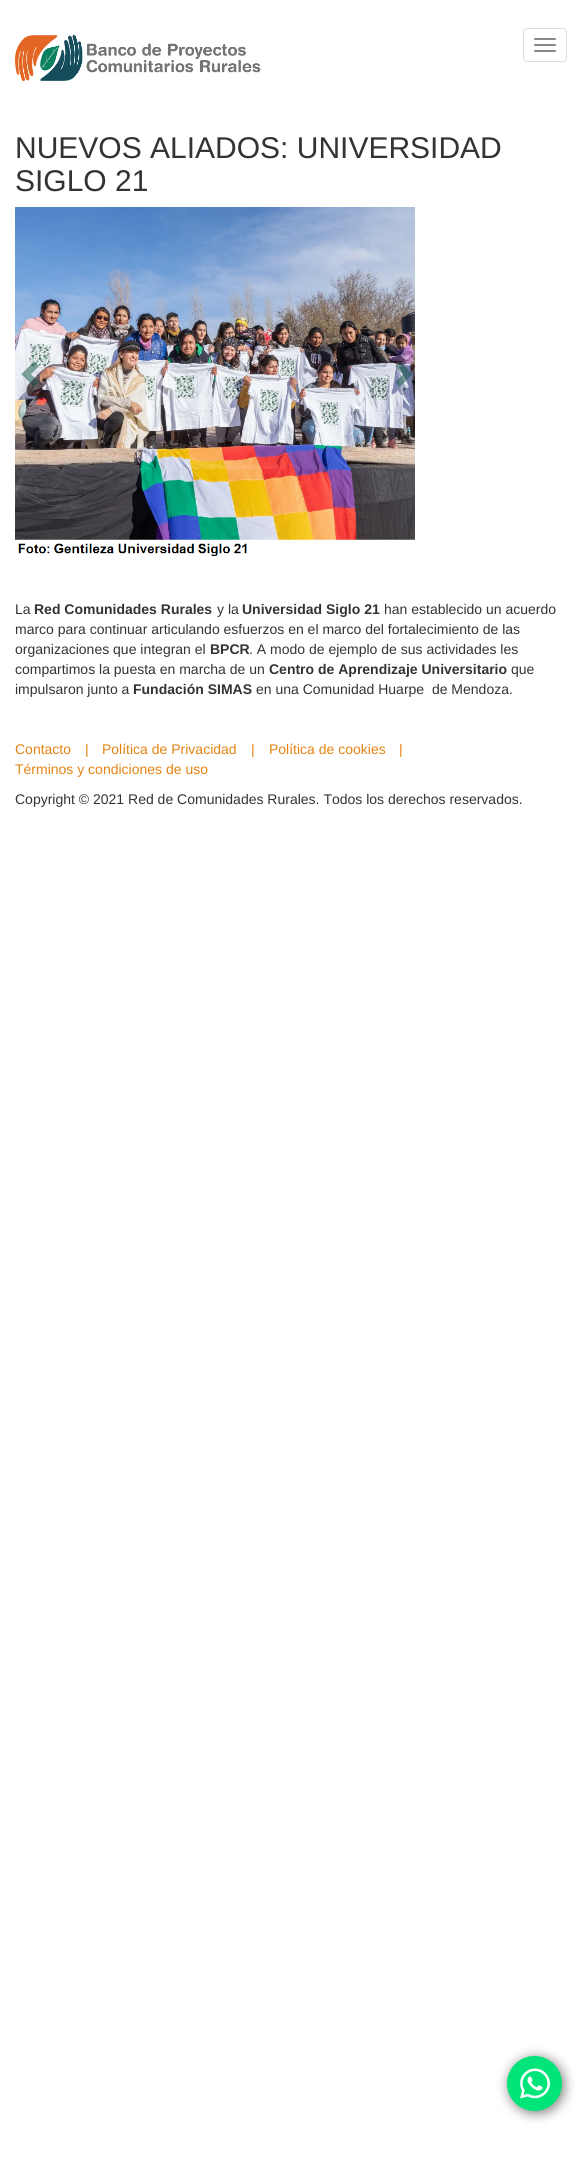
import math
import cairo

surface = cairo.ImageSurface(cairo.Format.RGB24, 582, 2181)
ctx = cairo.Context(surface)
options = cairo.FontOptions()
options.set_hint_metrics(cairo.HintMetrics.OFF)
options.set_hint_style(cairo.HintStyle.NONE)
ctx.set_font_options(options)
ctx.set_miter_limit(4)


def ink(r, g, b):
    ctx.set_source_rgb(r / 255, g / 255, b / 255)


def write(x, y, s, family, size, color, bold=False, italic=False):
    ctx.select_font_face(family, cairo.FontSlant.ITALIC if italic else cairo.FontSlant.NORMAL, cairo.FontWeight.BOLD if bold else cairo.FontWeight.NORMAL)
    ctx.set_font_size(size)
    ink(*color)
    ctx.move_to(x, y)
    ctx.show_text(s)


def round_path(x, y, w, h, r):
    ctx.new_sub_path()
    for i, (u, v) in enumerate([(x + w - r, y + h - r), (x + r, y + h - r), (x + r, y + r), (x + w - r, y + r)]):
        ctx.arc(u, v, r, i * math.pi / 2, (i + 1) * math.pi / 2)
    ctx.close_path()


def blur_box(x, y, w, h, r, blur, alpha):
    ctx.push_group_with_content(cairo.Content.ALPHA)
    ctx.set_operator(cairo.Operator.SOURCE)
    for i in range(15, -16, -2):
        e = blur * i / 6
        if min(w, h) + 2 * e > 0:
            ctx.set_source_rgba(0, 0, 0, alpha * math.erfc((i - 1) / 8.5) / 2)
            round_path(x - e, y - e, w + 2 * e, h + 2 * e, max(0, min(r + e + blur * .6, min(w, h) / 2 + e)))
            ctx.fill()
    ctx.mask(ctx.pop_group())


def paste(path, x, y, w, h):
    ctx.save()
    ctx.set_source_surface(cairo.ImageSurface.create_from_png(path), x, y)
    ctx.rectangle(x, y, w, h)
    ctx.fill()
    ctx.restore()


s1 = dict(family="Liberation Sans", size=30, color=(51, 51, 51))
s2 = dict(family="Liberation Sans", size=14, color=(51, 51, 51))
s3 = dict(family="Liberation Sans", size=14, color=(51, 51, 51), bold=True)
s4 = dict(family="Liberation Sans", size=14, color=(228, 131, 18))

ink(255, 255, 255)
ctx.paint()
paste("pic1.png", 15, 35, 246, 46)
round_path(523.5, 28.5, 43, 33, 3.5)
ink(221, 221, 221)
ctx.set_line_width(1)
ctx.stroke()
ink(136, 136, 136)
round_path(534, 38, 22, 2, 1)
ctx.fill()
round_path(534, 44, 22, 2, 1)
ctx.fill()
round_path(534, 50, 22, 2, 1)
ctx.fill()
write(15, 158, "NUEVOS ALIADOS: UNIVERSIDAD", **s1)
write(15, 191, "SIGLO 21", **s1)
paste("pic2.png", 15, 207, 400, 349)
write(15, 614, "La", **s2)
write(34, 614, "Red Comunidades Rurales", **s3)
write(217, 614, "y la", **s2)
write(242, 614, "Universidad Siglo 21", **s3)
write(384, 614, "han establecido un acuerdo", **s2)
write(15, 634, "marco para continuar articulando esfuerzos en el marco del fortalecimiento de las", **s2)
write(15, 654, "organizaciones que integran el", **s2)
write(210, 654, "BPCR", **s3)
write(249, 654, ". A modo de ejemplo de sus actividades les", **s2)
write(15, 674, "compartimos la puesta en marcha de un", **s2)
write(269, 674, "Centro de Aprendizaje Universitario", **s3)
write(511, 674, "que", **s2)
write(15, 694, "impulsaron junto a", **s2)
write(133, 694, "Fundación SIMAS", **s3)
write(256, 694, "en una Comunidad Huarpe  de Mendoza.", **s2)
write(15, 754, "Contacto", **s4)
write(85, 754, "|", **s4)
write(102, 754, "Política de Privacidad", **s4)
write(251, 754, "|", **s4)
write(269, 754, "Política de cookies", **s4)
write(399, 754, "|", **s4)
write(15, 774, "Términos y condiciones de uso", **s4)
write(15, 804, "Copyright © 2021 Red de Comunidades Rurales. Todos los derechos reservados.", **s2)
ink(128, 128, 128)
blur_box(509, 2058, 55, 55, 27.5, 6, 1)
ink(0, 228, 121)
ctx.arc(534.5, 2083.5, 27.5, 0, 2 * math.pi)
ctx.fill()
paste("pic3.png", 520, 2068, 30, 31)
surface.write_to_png("screenshot.png")
